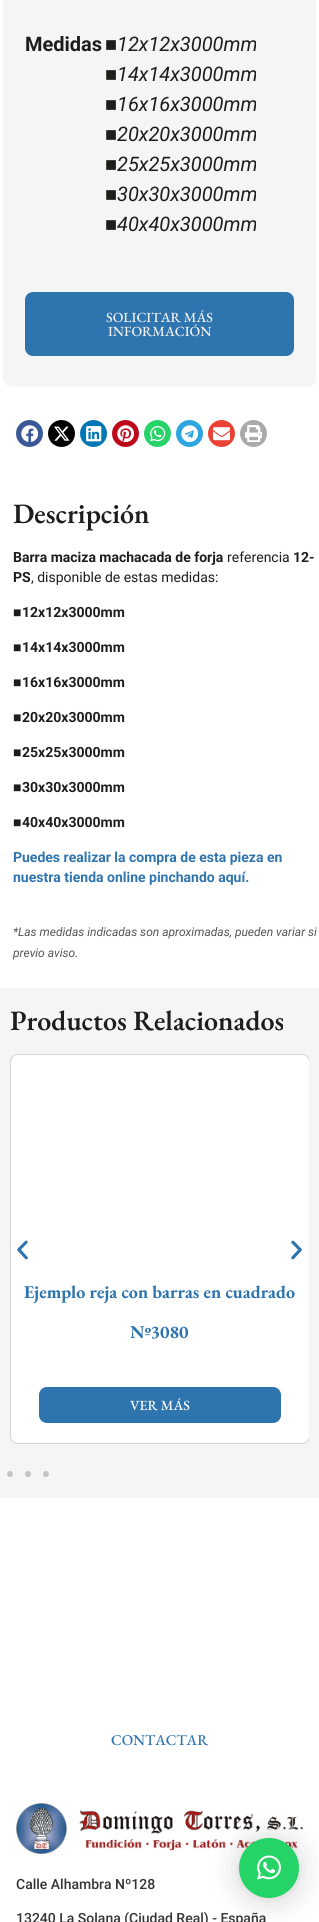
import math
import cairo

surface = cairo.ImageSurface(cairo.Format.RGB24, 319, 1922)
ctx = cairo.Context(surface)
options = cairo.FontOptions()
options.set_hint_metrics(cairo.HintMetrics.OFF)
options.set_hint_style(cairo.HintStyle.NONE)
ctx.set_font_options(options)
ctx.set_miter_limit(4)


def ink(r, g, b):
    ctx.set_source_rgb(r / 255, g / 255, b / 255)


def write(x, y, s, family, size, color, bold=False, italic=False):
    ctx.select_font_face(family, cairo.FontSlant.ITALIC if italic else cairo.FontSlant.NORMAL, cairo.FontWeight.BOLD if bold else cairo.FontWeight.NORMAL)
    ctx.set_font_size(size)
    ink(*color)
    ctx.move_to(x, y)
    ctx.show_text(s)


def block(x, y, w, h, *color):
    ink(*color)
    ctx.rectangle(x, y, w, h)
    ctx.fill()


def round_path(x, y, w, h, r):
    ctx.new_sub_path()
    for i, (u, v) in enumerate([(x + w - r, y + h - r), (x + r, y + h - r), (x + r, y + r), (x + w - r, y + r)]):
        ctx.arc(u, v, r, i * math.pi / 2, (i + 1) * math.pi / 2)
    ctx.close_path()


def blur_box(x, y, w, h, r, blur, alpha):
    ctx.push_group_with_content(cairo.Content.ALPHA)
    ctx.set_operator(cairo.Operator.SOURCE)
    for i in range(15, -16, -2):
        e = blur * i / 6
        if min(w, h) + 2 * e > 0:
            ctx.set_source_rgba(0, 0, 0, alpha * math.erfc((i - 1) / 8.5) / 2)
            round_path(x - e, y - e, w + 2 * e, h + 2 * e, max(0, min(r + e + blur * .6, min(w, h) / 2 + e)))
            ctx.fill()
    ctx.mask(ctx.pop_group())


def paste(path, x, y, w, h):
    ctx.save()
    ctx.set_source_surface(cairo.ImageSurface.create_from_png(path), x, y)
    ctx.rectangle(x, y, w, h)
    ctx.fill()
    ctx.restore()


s1 = dict(family="Roboto", size=20, color=(29, 29, 27), bold=True)
s2 = dict(family="Liberation Sans", size=20, color=(29, 29, 27), italic=True)
s3 = dict(family="Roboto", size=20, color=(29, 29, 27), italic=True)
s4 = dict(family="EB Garamond Medium", size=14, color=(240, 240, 240))
s5 = dict(family="EB Garamond SemiBold", size=28, color=(29, 29, 27))
s6 = dict(family="Roboto", size=14, color=(29, 29, 27), bold=True)
s7 = dict(family="Roboto", size=14, color=(29, 29, 27))
s8 = dict(family="Liberation Sans", size=14, color=(29, 29, 27), bold=True)
s9 = dict(family="Roboto", size=14, color=(46, 116, 174), bold=True)
s10 = dict(family="Roboto", size=12, color=(85, 85, 85), italic=True)
s11 = dict(family="EB Garamond", size=18, color=(46, 116, 174), bold=True)
s12 = dict(family="EB Garamond Medium", size=14, color=(255, 255, 255))
s13 = dict(family="EB Garamond Medium", size=15, color=(46, 116, 174))
s14 = dict(family="Roboto Medium", size=14, color=(52, 52, 52))

ink(255, 255, 255)
ctx.paint()
ink(245, 245, 245)
round_path(3, -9, 313, 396, 9)
ctx.fill()
write(25, 51, "Medidas", **s1)
write(105, 51, "■", **s2)
write(117, 51, "12x12x3000mm", **s3)
write(105, 81, "■", **s2)
write(117, 81, "14x14x3000mm", **s3)
write(105, 111, "■", **s2)
write(117, 111, "16x16x3000mm", **s3)
write(105, 141, "■", **s2)
write(117, 141, "20x20x3000mm", **s3)
write(105, 171, "■", **s2)
write(117, 171, "25x25x3000mm", **s3)
write(105, 201, "■", **s2)
write(117, 201, "30x30x3000mm", **s3)
write(105, 231, "■", **s2)
write(117, 231, "40x40x3000mm", **s3)
ink(46, 116, 174)
round_path(25, 292, 269, 64, 8)
ctx.fill()
write(106, 322, "SOLICITAR MÁS", **s4)
write(108, 336, "INFORMACIÓN", **s4)
ink(59, 89, 152)
ctx.new_path()
ctx.arc(29.5, 433.5, 13.5, 0, 2 * math.pi)
ctx.fill()
paste("pic1.png", 21, 425, 17, 17)
ink(0, 0, 0)
ctx.arc(61.5, 433.5, 13.5, 0, 2 * math.pi)
ctx.fill()
paste("pic2.png", 54, 426, 16, 15)
ink(0, 119, 181)
ctx.arc(93.5, 433.5, 13.5, 0, 2 * math.pi)
ctx.fill()
paste("pic3.png", 86, 426, 16, 16)
ink(189, 8, 28)
ctx.arc(125.5, 433.5, 13.5, 0, 2 * math.pi)
ctx.fill()
paste("pic4.png", 117, 425, 17, 17)
ink(37, 211, 102)
ctx.arc(157.5, 433.5, 13.5, 0, 2 * math.pi)
ctx.fill()
paste("pic5.png", 150, 426, 16, 16)
ink(44, 165, 224)
ctx.arc(189.5, 433.5, 13.5, 0, 2 * math.pi)
ctx.fill()
paste("pic6.png", 181, 425, 17, 17)
ink(234, 67, 53)
ctx.arc(221.5, 433.5, 13.5, 0, 2 * math.pi)
ctx.fill()
paste("pic7.png", 213, 427, 17, 14)
ink(170, 170, 170)
ctx.arc(253.5, 433.5, 13.5, 0, 2 * math.pi)
ctx.fill()
paste("pic8.png", 245, 425, 17, 17)
write(13, 523, "Descripción", **s5)
write(13, 562, "Barra maciza machacada de forja", **s6)
write(227, 562, "referencia", **s7)
write(293, 562, "12-", **s6)
write(13, 582, "PS", **s6)
write(31, 582, ", disponible de estas medidas:", **s7)
write(13, 617, "■", **s8)
write(22, 617, "12x12x3000mm", **s6)
write(13, 652, "■", **s8)
write(22, 652, "14x14x3000mm", **s6)
write(13, 687, "■", **s8)
write(22, 687, "16x16x3000mm", **s6)
write(13, 722, "■", **s8)
write(22, 722, "20x20x3000mm", **s6)
write(13, 757, "■", **s8)
write(22, 757, "25x25x3000mm", **s6)
write(13, 792, "■", **s8)
write(22, 792, "30x30x3000mm", **s6)
write(13, 827, "■", **s8)
write(22, 827, "40x40x3000mm", **s6)
write(13, 862, "Puedes realizar la compra de esta pieza en", **s9)
write(13, 882, "nuestra tienda online pinchando aquí.", **s9)
write(13, 936, "*Las medidas indicadas son aproximadas, pueden variar si", **s10)
write(13, 957, "previo aviso.", **s10)
block(0, 988, 319, 510, 245, 245, 245)
write(10, 1030, "Productos Relacionados", **s5)
ctx.save()
ctx.rectangle(10, 1054, 299, 423)
ctx.clip()
ink(255, 255, 255)
round_path(10.5, 1054.5, 299, 389, 7.5)
ctx.fill_preserve()
ink(212, 212, 212)
ctx.set_line_width(1)
ctx.stroke()
ctx.restore()
paste("pic9.png", 17, 1240, 11, 20)
paste("pic10.png", 291, 1240, 11, 20)
write(24, 1298, "Ejemplo reja con barras en cuadrado", **s11)
write(130, 1338, "Nº3080", **s11)
round_path(39.5, 1387.5, 241, 35, 7.5)
ctx.fill_preserve()
ctx.set_line_width(1)
ctx.stroke()
write(130, 1410, "VER MÁS", **s12)
ink(196, 196, 196)
ctx.new_path()
ctx.arc(10, 1474, 3, 0, 2 * math.pi)
ctx.fill()
ctx.arc(28, 1474, 3, 0, 2 * math.pi)
ctx.fill()
ctx.arc(46, 1474, 3, 0, 2 * math.pi)
ctx.fill()
write(111, 1745, "CONTACTAR", **s13)
paste("pic11.png", 16, 1803, 287, 51)
write(16, 1889, "Calle Alhambra Nº128", **s14)
write(16, 1923, "13240 La Solana (Ciudad Real) - España", **s14)
ink(0, 0, 0)
blur_box(239, 1840, 60, 60, 30, 16, 0.16)
blur_box(239, 1839, 60, 60, 30, 3, 0.06)
ink(37, 211, 102)
ctx.arc(269, 1868, 30, 0, 2 * math.pi)
ctx.fill()
paste("pic12.png", 257, 1855, 24, 25)
surface.write_to_png("screenshot.png")
